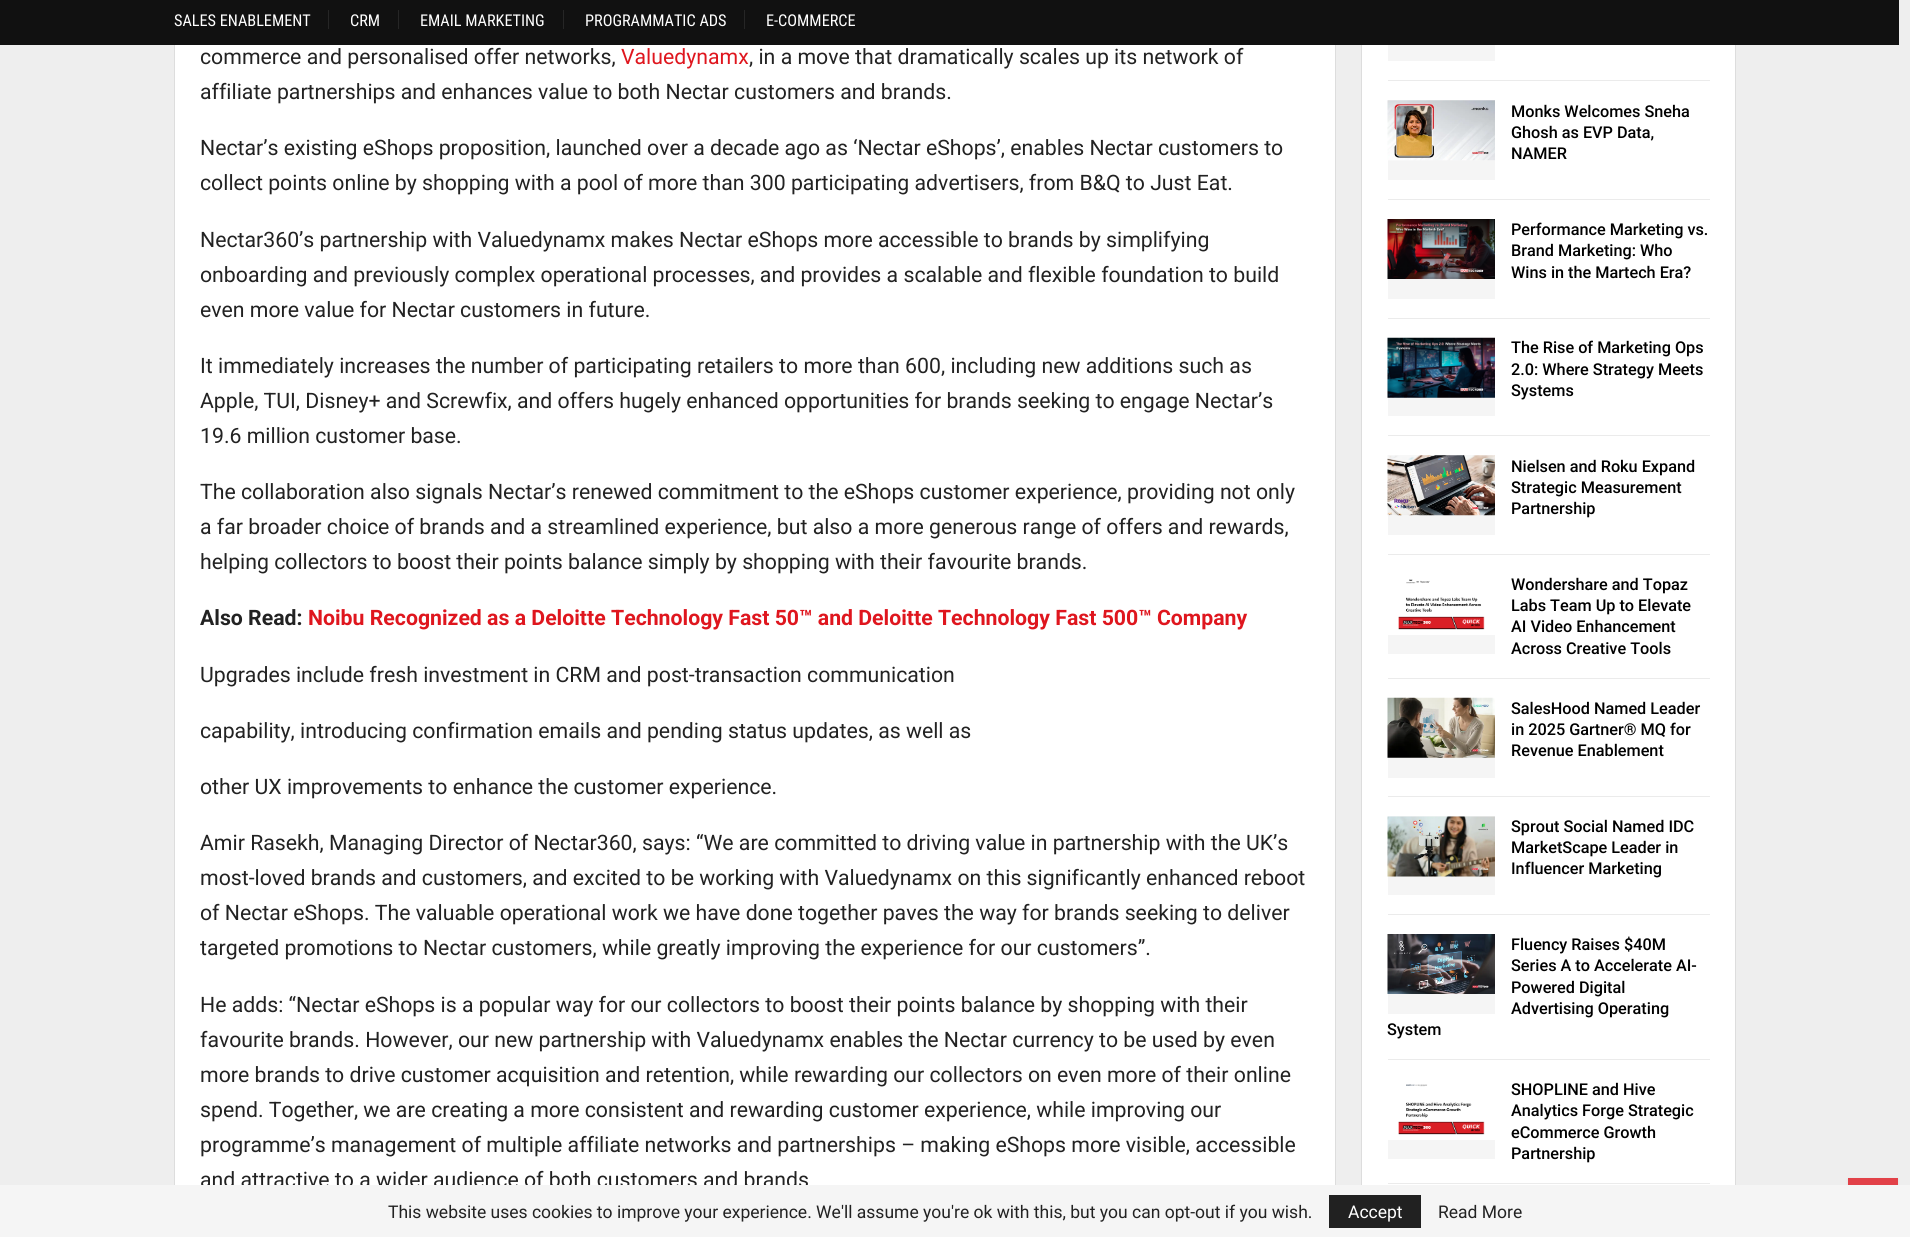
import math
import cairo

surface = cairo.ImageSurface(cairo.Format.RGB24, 1910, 1237)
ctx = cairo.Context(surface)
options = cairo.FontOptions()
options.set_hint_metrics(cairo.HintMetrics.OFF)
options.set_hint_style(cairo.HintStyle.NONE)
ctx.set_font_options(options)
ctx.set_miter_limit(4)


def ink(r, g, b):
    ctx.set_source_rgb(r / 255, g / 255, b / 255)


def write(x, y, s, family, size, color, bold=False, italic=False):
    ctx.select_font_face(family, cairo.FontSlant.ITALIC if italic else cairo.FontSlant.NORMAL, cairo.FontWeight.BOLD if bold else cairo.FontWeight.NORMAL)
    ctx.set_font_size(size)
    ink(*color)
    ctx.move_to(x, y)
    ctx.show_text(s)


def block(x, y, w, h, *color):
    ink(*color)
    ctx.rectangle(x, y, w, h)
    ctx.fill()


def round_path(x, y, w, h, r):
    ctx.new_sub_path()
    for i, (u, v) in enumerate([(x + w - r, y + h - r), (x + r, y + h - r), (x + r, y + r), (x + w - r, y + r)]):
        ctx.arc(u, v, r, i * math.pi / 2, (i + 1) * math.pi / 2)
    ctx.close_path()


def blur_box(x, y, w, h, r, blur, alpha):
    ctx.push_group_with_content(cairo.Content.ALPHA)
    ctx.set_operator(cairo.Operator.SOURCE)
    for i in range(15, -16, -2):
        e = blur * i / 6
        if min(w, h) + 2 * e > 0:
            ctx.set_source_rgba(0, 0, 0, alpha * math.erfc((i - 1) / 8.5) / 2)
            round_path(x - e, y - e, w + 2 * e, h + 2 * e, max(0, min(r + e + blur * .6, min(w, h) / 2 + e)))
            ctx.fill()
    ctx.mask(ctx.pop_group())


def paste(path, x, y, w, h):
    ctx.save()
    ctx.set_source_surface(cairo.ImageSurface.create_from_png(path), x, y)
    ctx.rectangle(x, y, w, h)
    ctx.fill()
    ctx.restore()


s1 = dict(family="Roboto Condensed", size=16.25, color=(255, 255, 255))
s2 = dict(family="Roboto", size=21.25, color=(34, 34, 34))
s3 = dict(family="Roboto", size=21.25, color=(223, 22, 30))
s4 = dict(family="Roboto", size=21.25, color=(34, 34, 34), bold=True)
s5 = dict(family="Roboto", size=21.25, color=(223, 22, 30), bold=True)
s6 = dict(family="Roboto Medium", size=16.25, color=(0, 0, 0))
s7 = dict(family="Roboto", size=17.5, color=(34, 34, 34))
s8 = dict(family="Roboto", size=17.5, color=(255, 255, 255))

ink(238, 238, 238)
ctx.paint()
block(175, 45, 1160, 1140, 255, 255, 255)
ctx.rectangle(174.5, -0.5, 1161, 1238)
ink(221, 221, 221)
ctx.set_line_width(1)
ctx.stroke()
block(1362, 45, 373, 1140, 255, 255, 255)
ctx.rectangle(1361.5, -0.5, 374, 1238)
ink(221, 221, 221)
ctx.stroke()
block(0, 0, 1899, 45, 17, 17, 17)
write(174, 26, "SALES ENABLEMENT", **s1)
block(328, 10, 1, 19, 38, 38, 38)
write(350, 26, "CRM", **s1)
block(398, 10, 1, 19, 38, 38, 38)
write(420, 26, "EMAIL MARKETING", **s1)
block(563, 10, 1, 19, 38, 38, 38)
write(585, 26, "PROGRAMMATIC ADS", **s1)
block(744, 10, 1, 19, 38, 38, 38)
write(766, 26, "E-COMMERCE", **s1)
write(200, 64, "commerce and personalised offer networks,", **s2)
write(621, 64, "Valuedynamx", **s3)
write(749, 64, ", in a move that dramatically scales up its network of", **s2)
write(200, 99, "affiliate partnerships and enhances value to both Nectar customers and brands.", **s2)
write(200, 155, "Nectar’s existing eShops proposition, launched over a decade ago as ‘Nectar eShops’, enables Nectar customers to", **s2)
write(200, 190, "collect points online by shopping with a pool of more than 300 participating advertisers, from B&Q to Just Eat.", **s2)
write(200, 247, "Nectar360’s partnership with Valuedynamx makes Nectar eShops more accessible to brands by simplifying", **s2)
write(200, 282, "onboarding and previously complex operational processes, and provides a scalable and flexible foundation to build", **s2)
write(200, 317, "even more value for Nectar customers in future.", **s2)
write(200, 373, "It immediately increases the number of participating retailers to more than 600, including new additions such as", **s2)
write(200, 408, "Apple, TUI, Disney+ and Screwfix, and offers hugely enhanced opportunities for brands seeking to engage Nectar’s", **s2)
write(200, 443, "19.6 million customer base.", **s2)
write(200, 499, "The collaboration also signals Nectar’s renewed commitment to the eShops customer experience, providing not only", **s2)
write(200, 534, "a far broader choice of brands and a streamlined experience, but also a more generous range of offers and rewards,", **s2)
write(200, 569, "helping collectors to boost their points balance simply by shopping with their favourite brands.", **s2)
write(200, 625, "Also Read:", **s4)
write(308, 625, "Noibu Recognized as a Deloitte Technology Fast 50™ and Deloitte Technology Fast 500™ Company", **s5)
write(200, 682, "Upgrades include fresh investment in CRM and post-transaction communication", **s2)
write(200, 738, "capability, introducing confirmation emails and pending status updates, as well as", **s2)
write(200, 794, "other UX improvements to enhance the customer experience.", **s2)
write(200, 850, "Amir Rasekh, Managing Director of Nectar360, says: “We are committed to driving value in partnership with the UK’s", **s2)
write(200, 885, "most-loved brands and customers, and excited to be working with Valuedynamx on this significantly enhanced reboot", **s2)
write(200, 920, "of Nectar eShops. The valuable operational work we have done together paves the way for brands seeking to deliver", **s2)
write(200, 955, "targeted promotions to Nectar customers, while greatly improving the experience for our customers”.", **s2)
write(200, 1012, "He adds: “Nectar eShops is a popular way for our collectors to boost their points balance by shopping with their", **s2)
write(200, 1047, "favourite brands. However, our new partnership with Valuedynamx enables the Nectar currency to be used by even", **s2)
write(200, 1082, "more brands to drive customer acquisition and retention, while rewarding our collectors on even more of their online", **s2)
write(200, 1117, "spend. Together, we are creating a more consistent and rewarding customer experience, while improving our", **s2)
write(200, 1152, "programme’s management of multiple affiliate networks and partnerships – making eShops more visible, accessible", **s2)
write(200, 1187, "and attractive to a wider audience of both customers and brands", **s2)
block(1388, 80, 322, 1, 235, 235, 235)
block(1388, 45, 107, 16, 245, 245, 245)
block(1388, 199, 322, 1, 235, 235, 235)
block(1388, 100, 107, 80, 245, 245, 245)
paste("pic1.png", 1387, 100, 108, 61)
write(1511, 117, "Monks Welcomes Sneha", **s6)
write(1511, 138, "Ghosh as EVP Data,", **s6)
write(1511, 159, "NAMER", **s6)
block(1388, 318, 322, 1, 235, 235, 235)
block(1388, 279, 107, 20, 245, 245, 245)
paste("pic2.png", 1387, 219, 108, 60)
write(1511, 235, "Performance Marketing vs.", **s6)
write(1511, 256, "Brand Marketing: Who", **s6)
write(1511, 278, "Wins in the Martech Era?", **s6)
block(1388, 435, 322, 1, 235, 235, 235)
block(1388, 397, 107, 19, 245, 245, 245)
paste("pic3.png", 1387, 337, 108, 61)
write(1511, 353, "The Rise of Marketing Ops", **s6)
write(1511, 375, "2.0: Where Strategy Meets", **s6)
write(1511, 396, "Systems", **s6)
block(1388, 554, 322, 1, 235, 235, 235)
block(1388, 455, 107, 80, 245, 245, 245)
paste("pic4.png", 1387, 455, 108, 61)
write(1511, 472, "Nielsen and Roku Expand", **s6)
write(1511, 493, "Strategic Measurement", **s6)
write(1511, 514, "Partnership", **s6)
block(1388, 678, 322, 1, 235, 235, 235)
block(1388, 635, 107, 19, 245, 245, 245)
paste("pic5.png", 1388, 574, 107, 61)
write(1511, 590, "Wondershare and Topaz", **s6)
write(1511, 611, "Labs Team Up to Elevate", **s6)
write(1511, 632, "AI Video Enhancement", **s6)
write(1511, 654, "Across Creative Tools", **s6)
block(1388, 796, 322, 1, 235, 235, 235)
block(1388, 757, 107, 21, 245, 245, 245)
paste("pic6.png", 1387, 697, 108, 61)
write(1511, 714, "SalesHood Named Leader", **s6)
write(1511, 735, "in 2025 Gartner® MQ for", **s6)
write(1511, 756, "Revenue Enablement", **s6)
block(1388, 914, 322, 1, 235, 235, 235)
block(1388, 816, 107, 79, 245, 245, 245)
paste("pic7.png", 1387, 816, 108, 61)
write(1511, 832, "Sprout Social Named IDC", **s6)
write(1511, 853, "MarketScape Leader in", **s6)
write(1511, 874, "Influencer Marketing", **s6)
block(1388, 1059, 322, 1, 235, 235, 235)
block(1388, 994, 107, 20, 245, 245, 245)
paste("pic8.png", 1387, 934, 108, 60)
write(1511, 950, "Fluency Raises $40M", **s6)
write(1511, 971, "Series A to Accelerate AI-", **s6)
write(1511, 993, "Powered Digital", **s6)
write(1511, 1014, "Advertising Operating", **s6)
write(1387, 1035, "System", **s6)
block(1388, 1183, 322, 1, 235, 235, 235)
block(1388, 1140, 107, 19, 245, 245, 245)
paste("pic9.png", 1388, 1079, 107, 61)
write(1511, 1095, "SHOPLINE and Hive", **s6)
write(1511, 1116, "Analytics Forge Strategic", **s6)
write(1511, 1138, "eCommerce Growth", **s6)
write(1511, 1159, "Partnership", **s6)
ink(48, 48, 48)
blur_box(1848, 1179, 50, 50, 0, 1, 0.09)
block(0, 1185, 1910, 52, 245, 245, 245)
write(388, 1218, "This website uses cookies to improve your experience. We'll assume you're ok with this, but you can opt-out if you wish.", **s7)
block(1329, 1195, 92, 33, 33, 33, 33)
write(1348, 1218, "Accept", **s8)
write(1438, 1218, "Read More", **s7)
block(1848, 1178, 50, 7, 226, 65, 72)
surface.write_to_png("screenshot.png")
